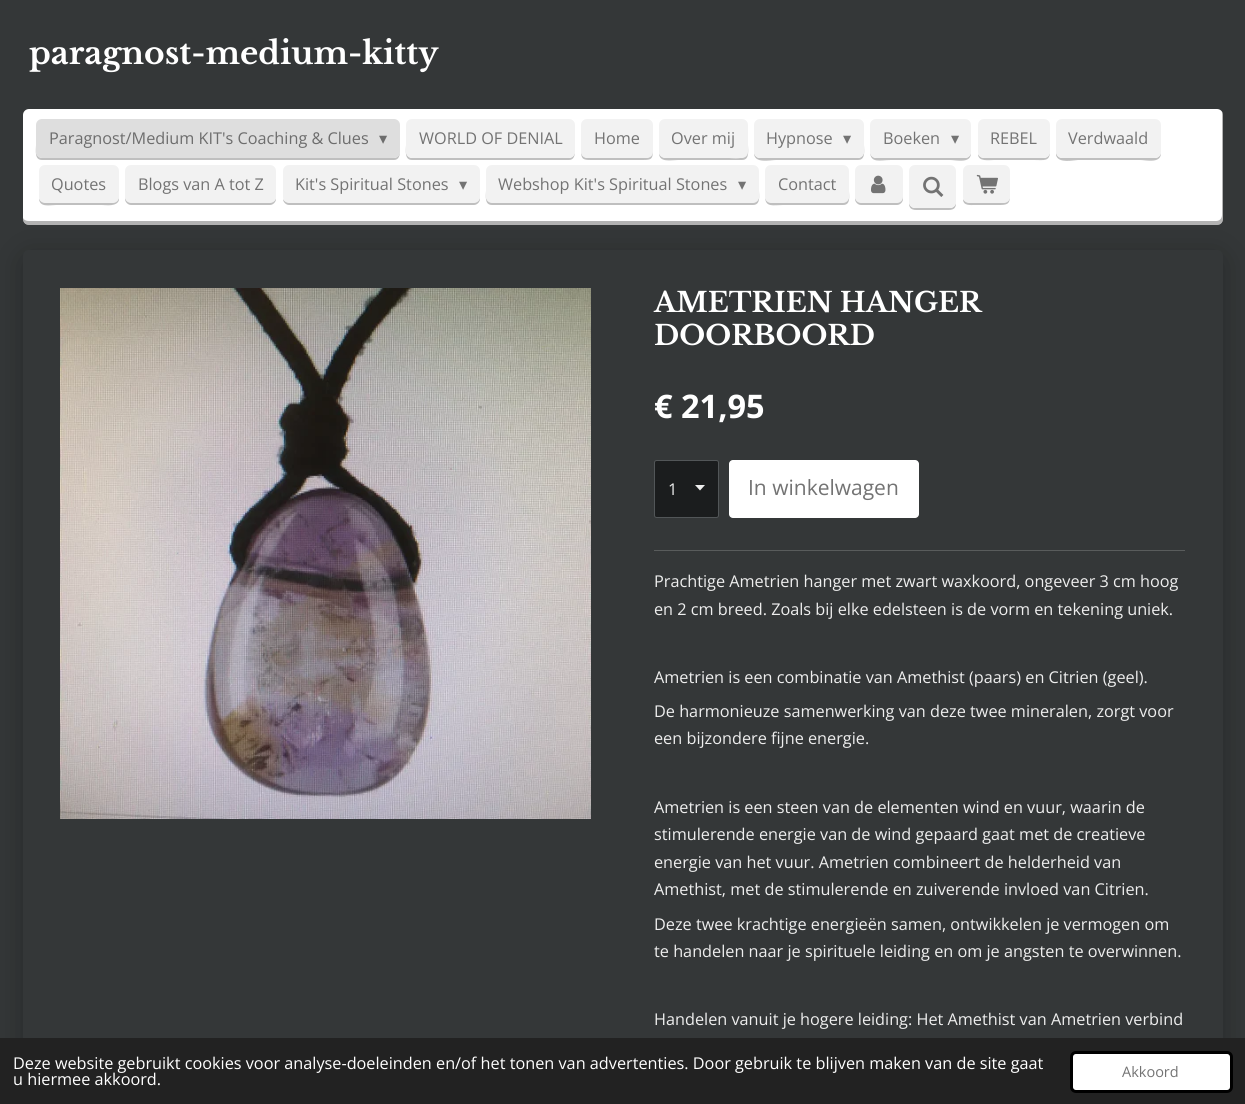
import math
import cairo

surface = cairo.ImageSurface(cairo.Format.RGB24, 1245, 1104)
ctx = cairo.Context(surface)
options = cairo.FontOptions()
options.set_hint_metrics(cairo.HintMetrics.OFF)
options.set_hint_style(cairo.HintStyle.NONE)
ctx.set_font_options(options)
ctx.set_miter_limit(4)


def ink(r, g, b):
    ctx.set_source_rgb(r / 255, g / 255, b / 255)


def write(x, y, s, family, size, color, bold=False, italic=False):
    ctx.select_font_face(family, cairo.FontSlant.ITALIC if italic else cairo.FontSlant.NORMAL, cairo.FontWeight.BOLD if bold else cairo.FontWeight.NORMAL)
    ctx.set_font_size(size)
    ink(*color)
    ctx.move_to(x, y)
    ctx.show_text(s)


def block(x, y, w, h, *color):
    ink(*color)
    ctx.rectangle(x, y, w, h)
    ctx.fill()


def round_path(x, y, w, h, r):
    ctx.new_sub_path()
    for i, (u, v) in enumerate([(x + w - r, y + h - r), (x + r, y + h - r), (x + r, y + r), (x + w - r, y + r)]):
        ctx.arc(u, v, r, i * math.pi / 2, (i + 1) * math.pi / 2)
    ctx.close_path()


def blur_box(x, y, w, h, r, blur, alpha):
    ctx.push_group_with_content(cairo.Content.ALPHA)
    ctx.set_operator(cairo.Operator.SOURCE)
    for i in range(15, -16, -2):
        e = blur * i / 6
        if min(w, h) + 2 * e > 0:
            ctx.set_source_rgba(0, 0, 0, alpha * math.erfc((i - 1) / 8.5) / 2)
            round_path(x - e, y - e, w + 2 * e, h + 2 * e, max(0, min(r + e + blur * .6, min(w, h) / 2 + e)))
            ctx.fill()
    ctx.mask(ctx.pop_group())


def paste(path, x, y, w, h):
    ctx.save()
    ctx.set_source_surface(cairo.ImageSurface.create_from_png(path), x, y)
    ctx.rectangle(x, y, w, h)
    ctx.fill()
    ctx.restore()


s1 = dict(family="Libre Baskerville", size=31.25, color=(255, 255, 255), bold=True)
s2 = dict(family="Open Sans", size=16.25, color=(109, 109, 109))
s3 = dict(family="DejaVu Sans", size=16.25, color=(109, 109, 109))
s4 = dict(family="Open Sans", size=16.25, color=(115, 115, 115))
s5 = dict(family="DejaVu Sans", size=16.25, color=(115, 115, 115))
s6 = dict(family="Libre Baskerville", size=27.5, color=(255, 255, 255), bold=True)
s7 = dict(family="Open Sans", size=32.5, color=(255, 255, 255), bold=True)
s8 = dict(family="Open Sans", size=16.25, color=(238, 238, 238))
s9 = dict(family="Open Sans", size=21, color=(115, 115, 115))
s10 = dict(family="Open Sans", size=16.25, color=(255, 255, 255))
s11 = dict(family="Open Sans", size=14.5, color=(115, 115, 115))

ink(52, 55, 56)
ctx.paint()
write(29, 64, "paragnost-medium-kitty", **s1)
round_path(23, 109, 1200, 116, 6)
ctx.fill()
ctx.set_source_rgba(0, 0, 0, 0.3)
ctx.new_path()
ctx.move_to(23, 218)
ctx.line_to(23, 219)
ctx.curve_to(23, 222, 26, 225, 29, 225)
ctx.line_to(1217, 225)
ctx.curve_to(1220, 225, 1223, 222, 1223, 219)
ctx.line_to(1223, 115)
ctx.curve_to(1223, 114, 1223, 113, 1222, 112)
ctx.line_to(1222, 215)
ctx.curve_to(1222, 218, 1220, 221, 1216, 221)
ctx.line_to(29, 221)
ctx.curve_to(26, 221, 24, 220, 23, 218)
ctx.close_path()
ctx.fill()
ink(191, 191, 191)
ctx.new_path()
ctx.move_to(36, 125)
ctx.line_to(36, 145)
ctx.curve_to(36, 150, 34, 160, 42, 160)
ctx.line_to(394, 160)
ctx.curve_to(399, 160, 400, 155, 400, 151)
ctx.curve_to(400, 155, 397, 158, 394, 158)
ctx.line_to(42, 158)
ctx.curve_to(39, 158, 36, 155, 36, 151)
ctx.close_path()
ctx.fill()
ink(222, 222, 222)
round_path(36, 119, 364, 39, 6)
ctx.fill()
write(49, 144, "Paragnost/Medium KIT's Coaching & Clues", **s2)
write(379, 144, "▾", **s3)
ink(191, 191, 191)
ctx.new_path()
ctx.move_to(406, 125)
ctx.line_to(406, 145)
ctx.curve_to(406, 150, 404, 160, 412, 160)
ctx.line_to(569, 160)
ctx.curve_to(574, 160, 575, 155, 575, 151)
ctx.curve_to(575, 155, 572, 158, 569, 158)
ctx.line_to(412, 158)
ctx.curve_to(409, 158, 406, 155, 406, 151)
ctx.close_path()
ctx.fill()
ink(242, 242, 242)
round_path(406, 119, 169, 39, 6)
ctx.fill()
write(419, 144, "WORLD OF DENIAL", **s4)
ink(191, 191, 191)
ctx.new_path()
ctx.move_to(581, 125)
ctx.line_to(581, 145)
ctx.curve_to(581, 161, 581, 160, 597, 160)
ctx.line_to(637, 160)
ctx.curve_to(653, 160, 653, 161, 653, 145)
ctx.line_to(652, 125)
ctx.line_to(652, 142)
ctx.curve_to(652, 158, 653, 158, 636, 158)
ctx.line_to(597, 158)
ctx.curve_to(585, 158, 581, 159, 581, 147)
ctx.close_path()
ctx.fill()
ink(242, 242, 242)
round_path(581, 119, 72, 39, 6)
ctx.fill()
write(594, 144, "Home", **s4)
ink(191, 191, 191)
ctx.new_path()
ctx.move_to(659, 153)
ctx.curve_to(659, 163, 671, 160, 678, 160)
ctx.line_to(742, 160)
ctx.curve_to(750, 160, 748, 150, 748, 145)
ctx.line_to(747, 125)
ctx.line_to(747, 153)
ctx.curve_to(746, 160, 733, 158, 729, 158)
ctx.line_to(665, 158)
ctx.curve_to(662, 157, 660, 156, 659, 153)
ctx.close_path()
ctx.fill()
ink(242, 242, 242)
round_path(659, 119, 89, 39, 6)
ctx.fill()
write(671, 144, "Over mij", **s4)
ink(191, 191, 191)
ctx.new_path()
ctx.move_to(754, 153)
ctx.curve_to(754, 164, 770, 160, 776, 160)
ctx.line_to(858, 160)
ctx.curve_to(866, 160, 864, 150, 864, 145)
ctx.line_to(864, 125)
ctx.line_to(864, 151)
ctx.curve_to(864, 155, 861, 158, 858, 158)
ctx.line_to(760, 158)
ctx.curve_to(757, 158, 755, 156, 754, 153)
ctx.close_path()
ctx.fill()
ink(242, 242, 242)
round_path(754, 119, 110, 39, 6)
ctx.fill()
write(766, 144, "Hypnose", **s4)
write(843, 144, "▾", **s5)
ink(191, 191, 191)
ctx.new_path()
ctx.move_to(870, 151)
ctx.curve_to(870, 164, 880, 160, 891, 160)
ctx.line_to(950, 160)
ctx.curve_to(956, 160, 971, 164, 971, 153)
ctx.curve_to(970, 156, 968, 158, 965, 158)
ctx.line_to(876, 158)
ctx.curve_to(873, 158, 870, 155, 870, 151)
ctx.close_path()
ctx.fill()
ink(242, 242, 242)
round_path(870, 119, 101, 39, 6)
ctx.fill()
write(883, 144, "Boeken", **s4)
write(951, 144, "▾", **s5)
ink(191, 191, 191)
ctx.new_path()
ctx.move_to(978, 154)
ctx.curve_to(978, 162, 989, 160, 994, 160)
ctx.line_to(1034, 160)
ctx.curve_to(1044, 160, 1050, 162, 1050, 151)
ctx.curve_to(1050, 155, 1047, 158, 1044, 158)
ctx.line_to(984, 158)
ctx.curve_to(981, 158, 979, 156, 978, 154)
ctx.close_path()
ctx.fill()
ink(242, 242, 242)
round_path(978, 119, 72, 39, 6)
ctx.fill()
write(990, 144, "REBEL", **s4)
ink(191, 191, 191)
ctx.new_path()
ctx.move_to(1056, 125)
ctx.line_to(1056, 155)
ctx.curve_to(1058, 164, 1074, 160, 1078, 160)
ctx.line_to(1140, 160)
ctx.curve_to(1146, 160, 1161, 164, 1161, 153)
ctx.curve_to(1160, 156, 1158, 158, 1155, 158)
ctx.line_to(1062, 158)
ctx.curve_to(1059, 158, 1056, 155, 1056, 151)
ctx.close_path()
ctx.fill()
ink(242, 242, 242)
round_path(1056, 119, 105, 39, 6)
ctx.fill()
write(1068, 144, "Verdwaald", **s4)
ink(191, 191, 191)
ctx.new_path()
ctx.move_to(39, 198)
ctx.curve_to(39, 208, 50, 205, 56, 205)
ctx.line_to(102, 205)
ctx.curve_to(106, 205, 117, 207, 119, 200)
ctx.line_to(119, 172)
ctx.line_to(119, 196)
ctx.curve_to(119, 200, 116, 202, 112, 202)
ctx.line_to(45, 202)
ctx.curve_to(42, 202, 40, 201, 39, 198)
ctx.close_path()
ctx.fill()
ink(242, 242, 242)
round_path(39, 165, 80, 38, 6)
ctx.fill()
write(51, 190, "Quotes", **s4)
ink(191, 191, 191)
ctx.new_path()
ctx.move_to(125, 196)
ctx.line_to(125, 199)
ctx.curve_to(125, 202, 128, 205, 131, 205)
ctx.line_to(270, 205)
ctx.curve_to(273, 205, 276, 202, 276, 199)
ctx.line_to(276, 198)
ctx.curve_to(275, 201, 273, 202, 270, 202)
ctx.line_to(131, 202)
ctx.curve_to(128, 202, 125, 200, 125, 196)
ctx.close_path()
ctx.fill()
ink(242, 242, 242)
round_path(125, 165, 151, 38, 6)
ctx.fill()
write(138, 190, "Blogs van A tot Z", **s4)
ink(191, 191, 191)
ctx.new_path()
ctx.move_to(283, 199)
ctx.curve_to(283, 202, 286, 205, 289, 205)
ctx.line_to(474, 205)
ctx.curve_to(477, 205, 480, 202, 480, 199)
ctx.line_to(480, 196)
ctx.curve_to(480, 200, 477, 202, 474, 202)
ctx.line_to(289, 202)
ctx.curve_to(286, 202, 284, 201, 283, 199)
ctx.close_path()
ctx.fill()
ink(242, 242, 242)
round_path(283, 165, 197, 38, 6)
ctx.fill()
write(295, 190, "Kit's Spiritual Stones", **s4)
write(459, 190, "▾", **s5)
ink(191, 191, 191)
ctx.new_path()
ctx.move_to(486, 172)
ctx.line_to(486, 191)
ctx.curve_to(486, 195, 484, 205, 492, 205)
ctx.line_to(753, 205)
ctx.curve_to(761, 205, 759, 195, 759, 191)
ctx.line_to(759, 172)
ctx.line_to(759, 196)
ctx.curve_to(759, 200, 756, 202, 752, 202)
ctx.line_to(492, 202)
ctx.curve_to(489, 202, 486, 200, 486, 196)
ctx.close_path()
ctx.fill()
ink(242, 242, 242)
round_path(486, 165, 273, 38, 6)
ctx.fill()
write(498, 190, "Webshop Kit's Spiritual Stones", **s4)
write(738, 190, "▾", **s5)
ink(191, 191, 191)
ctx.new_path()
ctx.move_to(765, 196)
ctx.curve_to(765, 208, 773, 205, 783, 205)
ctx.line_to(843, 205)
ctx.curve_to(851, 205, 849, 196, 849, 191)
ctx.line_to(849, 172)
ctx.line_to(849, 196)
ctx.curve_to(849, 200, 846, 202, 842, 202)
ctx.line_to(771, 202)
ctx.curve_to(768, 202, 765, 200, 765, 196)
ctx.close_path()
ctx.fill()
ink(242, 242, 242)
round_path(765, 165, 84, 38, 6)
ctx.fill()
write(778, 190, "Contact", **s4)
ink(191, 191, 191)
ctx.new_path()
ctx.move_to(855, 196)
ctx.line_to(855, 199)
ctx.curve_to(855, 202, 858, 205, 861, 205)
ctx.line_to(897, 205)
ctx.curve_to(900, 205, 903, 202, 903, 199)
ctx.line_to(903, 174)
ctx.line_to(902, 172)
ctx.line_to(902, 196)
ctx.curve_to(902, 200, 900, 202, 896, 202)
ctx.line_to(861, 202)
ctx.curve_to(858, 202, 855, 200, 855, 196)
ctx.close_path()
ctx.fill()
ink(242, 242, 242)
round_path(855, 165, 48, 38, 6)
ctx.fill()
paste("pic1.png", 871, 175, 15, 19)
ink(0, 0, 0)
blur_box(23, 256, 1200, 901, 6, 15.5, 0.25)
ink(191, 191, 191)
ctx.new_path()
ctx.move_to(909, 203)
ctx.curve_to(909, 211, 915, 210, 921, 210)
ctx.line_to(944, 210)
ctx.curve_to(950, 210, 956, 211, 956, 203)
ctx.curve_to(955, 206, 953, 208, 950, 208)
ctx.line_to(915, 208)
ctx.curve_to(912, 208, 910, 206, 909, 203)
ctx.close_path()
ctx.fill()
ink(242, 242, 242)
round_path(909, 165, 47, 43, 6)
ctx.fill()
paste("pic2.png", 923, 176, 21, 21)
ink(191, 191, 191)
ctx.new_path()
ctx.move_to(963, 199)
ctx.curve_to(963, 206, 970, 205, 975, 205)
ctx.line_to(998, 205)
ctx.curve_to(1006, 205, 1010, 205, 1010, 196)
ctx.curve_to(1010, 200, 1007, 202, 1004, 202)
ctx.line_to(969, 202)
ctx.curve_to(966, 202, 964, 201, 963, 199)
ctx.close_path()
ctx.fill()
ink(242, 242, 242)
round_path(963, 165, 47, 38, 6)
ctx.fill()
paste("pic3.png", 976, 174, 22, 20)
ink(52, 55, 56)
round_path(23, 250, 1200, 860, 6)
ctx.fill()
paste("pic4.png", 60, 288, 531, 531)
write(654, 312, "AMETRIEN HANGER", **s6)
write(654, 345, "DOORBOORD", **s6)
write(654, 418, "€ 21,95", **s7)
ink(27, 29, 30)
round_path(654, 460, 65, 58, 2.5)
ctx.fill()
ink(238, 238, 238)
ctx.new_path()
ctx.move_to(700, 490.5)
ctx.line_to(695, 485)
ctx.line_to(705, 485)
ctx.close_path()
ctx.fill()
round_path(654.5, 460.5, 64, 57, 2)
ctx.set_source_rgba(0.545, 0.569, 0.576, 0.5)
ctx.set_line_width(1)
ctx.stroke()
write(668, 495, "1", **s8)
ink(255, 255, 255)
round_path(729, 460, 190, 58, 4)
ctx.fill()
write(748, 495, "In winkelwagen", **s9)
block(654, 550, 531, 1, 89, 92, 92)
write(654, 587, "Prachtige Ametrien hanger met zwart waxkoord, ongeveer 3 cm hoog", **s8)
write(654, 615, "en 2 cm breed. Zoals bij elke edelsteen is de vorm en tekening uniek.", **s8)
write(654, 683, "Ametrien is een combinatie van Amethist (paars) en Citrien (geel).", **s8)
write(654, 717, "De harmonieuze samenwerking van deze twee mineralen, zorgt voor", **s8)
write(654, 744, "een bijzondere fijne energie.", **s8)
write(654, 813, "Ametrien is een steen van de elementen wind en vuur, waarin de", **s8)
write(654, 840, "stimulerende energie van de wind gepaard gaat met de creatieve", **s8)
write(654, 868, "energie van het vuur. Ametrien combineert de helderheid van", **s8)
write(654, 895, "Amethist, met de stimulerende en zuiverende invloed van Citrien.", **s8)
write(654, 930, "Deze twee krachtige energieën samen, ontwikkelen je vermogen om", **s8)
write(654, 957, "te handelen naar je spirituele leiding en om je angsten te overwinnen.", **s8)
write(654, 1025, "Handelen vanuit je hogere leiding: Het Amethist van Ametrien verbind", **s8)
block(0, 1038, 1245, 66, 34, 34, 34)
write(13, 1069, "Deze website gebruikt cookies voor analyse-doeleinden en/of het tonen van advertenties. Door gebruik te blijven maken van de site gaat", **s10)
write(13, 1085, "u hiermee akkoord.", **s10)
round_path(1071.5, 1052.5, 160, 39, 4.5)
ctx.fill_preserve()
ink(0, 0, 0)
ctx.set_line_width(3)
ctx.stroke()
write(1122, 1077, "Akkoord", **s11)
surface.write_to_png("screenshot.png")
